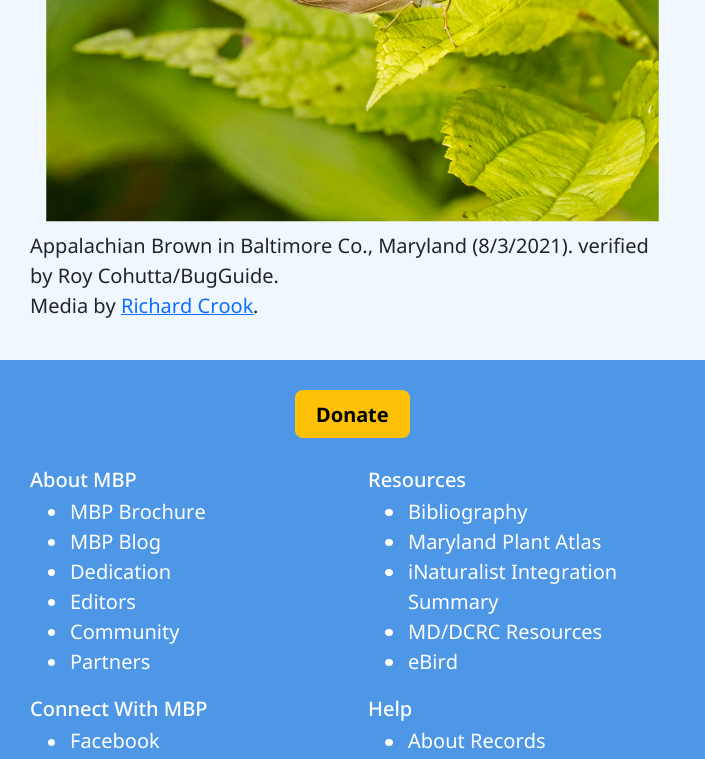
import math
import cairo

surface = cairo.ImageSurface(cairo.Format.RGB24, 705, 759)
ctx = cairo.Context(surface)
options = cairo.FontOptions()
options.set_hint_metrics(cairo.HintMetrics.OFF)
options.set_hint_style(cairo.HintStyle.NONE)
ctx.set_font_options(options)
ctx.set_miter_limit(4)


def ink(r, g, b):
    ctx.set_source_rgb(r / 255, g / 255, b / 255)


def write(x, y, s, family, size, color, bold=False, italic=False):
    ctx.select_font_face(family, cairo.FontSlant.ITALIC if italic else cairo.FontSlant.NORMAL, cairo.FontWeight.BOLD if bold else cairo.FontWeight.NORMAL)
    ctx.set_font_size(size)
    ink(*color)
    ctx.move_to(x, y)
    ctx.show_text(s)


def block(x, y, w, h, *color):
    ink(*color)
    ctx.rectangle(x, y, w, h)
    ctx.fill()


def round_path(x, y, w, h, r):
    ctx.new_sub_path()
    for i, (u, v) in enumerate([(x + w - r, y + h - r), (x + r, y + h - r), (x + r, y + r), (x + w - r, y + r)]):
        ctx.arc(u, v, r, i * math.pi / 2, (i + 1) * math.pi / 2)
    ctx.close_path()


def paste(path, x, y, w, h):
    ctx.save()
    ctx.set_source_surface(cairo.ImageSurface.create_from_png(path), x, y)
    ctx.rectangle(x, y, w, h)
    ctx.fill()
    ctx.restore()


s1 = dict(family="Noto Sans", size=20, color=(33, 37, 41))
s2 = dict(family="Noto Sans", size=20, color=(13, 110, 253))
s3 = dict(family="Noto Sans", size=20, color=(0, 0, 0), bold=True)
s4 = dict(family="Noto Sans Medium", size=20, color=(255, 255, 255))
s5 = dict(family="Noto Sans", size=20, color=(255, 255, 255))

ink(240, 247, 255)
ctx.paint()
paste("pic1.png", 46, 0, 613, 222)
write(30, 253, "Appalachian Brown in Baltimore Co., Maryland (8/3/2021). verified", **s1)
write(30, 283, "by Roy Cohutta/BugGuide.", **s1)
write(30, 313, "Media by", **s1)
write(121, 313, "Richard Crook", **s2)
block(121, 314, 133, 1, 13, 110, 253)
write(253, 313, ".", **s1)
block(0, 360, 705, 399, 78, 151, 231)
ink(255, 193, 7)
round_path(295.5, 390.5, 114, 47, 7.5)
ctx.fill_preserve()
ctx.set_line_width(1)
ctx.stroke()
write(316, 422, "Donate", **s3)
write(30, 487, "About MBP", **s4)
ctx.new_path()
ctx.arc(51.5, 512.5, 3.5, 0, 2 * math.pi)
ctx.fill()
write(70, 519, "MBP Brochure", **s5)
ctx.new_path()
ctx.arc(51.5, 542.5, 3.5, 0, 2 * math.pi)
ctx.fill()
write(70, 549, "MBP Blog", **s5)
ctx.new_path()
ctx.arc(51.5, 572.5, 3.5, 0, 2 * math.pi)
ctx.fill()
write(70, 579, "Dedication", **s5)
ctx.new_path()
ctx.arc(51.5, 602.5, 3.5, 0, 2 * math.pi)
ctx.fill()
write(70, 609, "Editors", **s5)
ctx.new_path()
ctx.arc(51.5, 632.5, 3.5, 0, 2 * math.pi)
ctx.fill()
write(70, 639, "Community", **s5)
ctx.new_path()
ctx.arc(51.5, 662.5, 3.5, 0, 2 * math.pi)
ctx.fill()
write(70, 669, "Partners", **s5)
write(368, 487, "Resources", **s4)
round_path(385, 509, 8, 7, 3.5)
ctx.fill()
write(408, 519, "Bibliography", **s5)
round_path(385, 539, 8, 7, 3.5)
ctx.fill()
write(408, 549, "Maryland Plant Atlas", **s5)
round_path(385, 569, 8, 7, 3.5)
ctx.fill()
write(408, 579, "iNaturalist Integration", **s5)
write(408, 609, "Summary", **s5)
round_path(385, 629, 8, 7, 3.5)
ctx.fill()
write(408, 639, "MD/DCRC Resources", **s5)
round_path(385, 659, 8, 7, 3.5)
ctx.fill()
write(408, 669, "eBird", **s5)
write(30, 716, "Connect With MBP", **s4)
ctx.new_path()
ctx.arc(51.5, 742.5, 3.5, 0, 2 * math.pi)
ctx.fill()
write(70, 748, "Facebook", **s5)
write(368, 716, "Help", **s4)
round_path(385, 739, 8, 7, 3.5)
ctx.fill()
write(408, 748, "About Records", **s5)
surface.write_to_png("screenshot.png")
